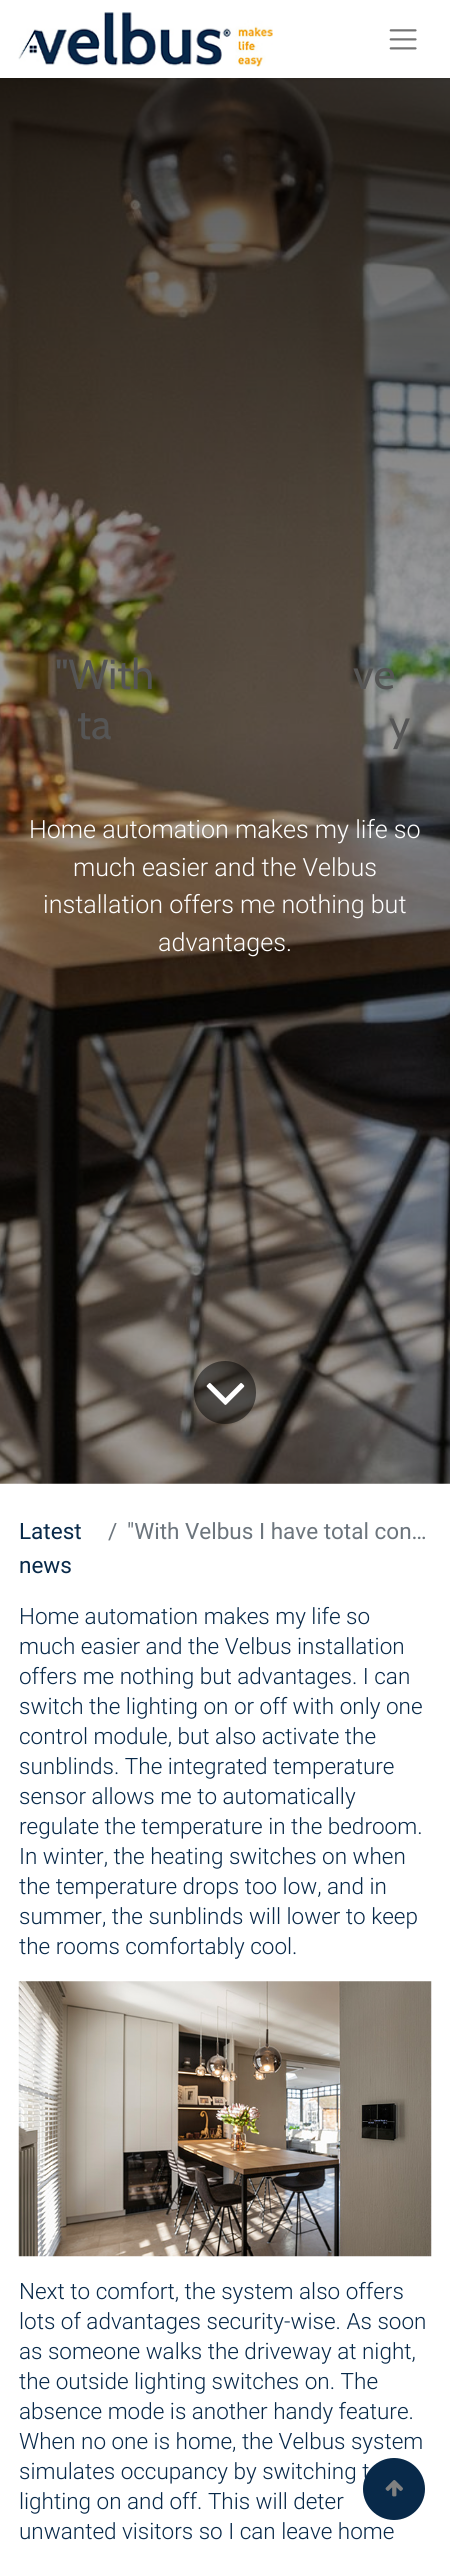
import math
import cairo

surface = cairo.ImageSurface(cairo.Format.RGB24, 450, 2557)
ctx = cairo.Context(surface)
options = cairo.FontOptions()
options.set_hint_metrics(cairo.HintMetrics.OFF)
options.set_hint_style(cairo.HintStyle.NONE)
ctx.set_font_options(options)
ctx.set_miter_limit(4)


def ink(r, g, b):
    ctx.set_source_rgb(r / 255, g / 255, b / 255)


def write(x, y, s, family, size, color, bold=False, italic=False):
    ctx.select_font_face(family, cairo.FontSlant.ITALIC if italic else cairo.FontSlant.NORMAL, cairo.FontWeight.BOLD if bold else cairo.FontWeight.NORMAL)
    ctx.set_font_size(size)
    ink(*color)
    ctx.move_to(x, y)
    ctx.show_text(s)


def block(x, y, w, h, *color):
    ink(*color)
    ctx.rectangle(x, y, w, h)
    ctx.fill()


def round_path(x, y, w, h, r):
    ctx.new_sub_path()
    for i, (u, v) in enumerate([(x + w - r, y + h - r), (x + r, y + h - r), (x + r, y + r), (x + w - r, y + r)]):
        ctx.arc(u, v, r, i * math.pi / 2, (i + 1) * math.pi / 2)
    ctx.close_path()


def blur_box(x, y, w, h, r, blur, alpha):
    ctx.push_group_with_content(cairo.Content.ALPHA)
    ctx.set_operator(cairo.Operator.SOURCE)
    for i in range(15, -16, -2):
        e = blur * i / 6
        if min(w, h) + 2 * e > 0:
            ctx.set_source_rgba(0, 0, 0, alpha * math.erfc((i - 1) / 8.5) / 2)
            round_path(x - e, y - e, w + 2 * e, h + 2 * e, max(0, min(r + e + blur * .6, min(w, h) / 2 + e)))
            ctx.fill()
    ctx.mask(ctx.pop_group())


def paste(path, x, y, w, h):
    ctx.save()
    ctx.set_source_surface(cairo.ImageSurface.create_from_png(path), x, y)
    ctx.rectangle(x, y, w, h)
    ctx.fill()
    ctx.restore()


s1 = dict(family="Cabin", size=42, color=(85, 85, 85))
s2 = dict(family="Roboto Light", size=25.1, color=(255, 255, 255))
s3 = dict(family="Roboto", size=22.5, color=(8, 41, 73))
s4 = dict(family="Roboto", size=22.5, color=(108, 117, 125))
s5 = dict(family="Roboto Light", size=22.5, color=(8, 41, 73))

ink(255, 255, 255)
ctx.paint()
paste("pic3.png", 0, 78, 450, 1406)
ink(0, 0, 0)
blur_box(0, 1, 450, 78, 0, 2, 0.1)
block(0, 0, 450, 78, 255, 255, 255)
paste("pic1.png", 18, 12, 255, 55)
paste("pic2.png", 389, 29, 28, 21)
write(55, 689, "\"With", **s1)
write(353, 689, "ve", **s1)
write(77, 739, "ta", **s1)
write(389, 739, "y", **s1)
write(29, 838, "Home automation makes my life so", **s2)
write(73, 876, "much easier and the Velbus", **s2)
write(43, 913, "installation offers me nothing but", **s2)
write(158, 951, "advantages.", **s2)
ctx.set_source_rgba(0, 0, 0, 0.5)
round_path(194, 1361, 62, 63, 31)
ctx.fill()
paste("pic4.png", 206, 1383, 39, 22)
write(19, 1539, "Latest", **s3)
write(19, 1573, "news", **s3)
write(108, 1539, "/", **s4)
write(127, 1539, "\"With Velbus I have total con…", **s4)
write(19, 1624, "Home automation makes my life so", **s5)
write(19, 1654, "much easier and the Velbus installation", **s5)
write(19, 1684, "offers me nothing but advantages. I can", **s5)
write(19, 1714, "switch the lighting on or off with only one", **s5)
write(19, 1744, "control module, but also activate the", **s5)
write(19, 1774, "sunblinds. The integrated temperature", **s5)
write(19, 1804, "sensor allows me to automatically", **s5)
write(19, 1834, "regulate the temperature in the bedroom.", **s5)
write(19, 1864, "In winter, the heating switches on when", **s5)
write(19, 1894, "the temperature drops too low, and in", **s5)
write(19, 1924, "summer, the sunblinds will lower to keep", **s5)
write(19, 1954, "the rooms comfortably cool.", **s5)
paste("pic5.png", 18, 1981, 414, 276)
write(19, 2299, "Next to comfort, the system also offers", **s5)
write(19, 2329, "lots of advantages security-wise. As soon", **s5)
write(19, 2359, "as someone walks the driveway at night,", **s5)
write(19, 2389, "the outside lighting switches on. The", **s5)
write(19, 2419, "absence mode is another handy feature.", **s5)
write(19, 2449, "When no one is home, the Velbus system", **s5)
write(19, 2479, "simulates occupancy by switching t", **s5)
write(19, 2509, "lighting on and off. This will deter", **s5)
write(19, 2539, "unwanted visitors so I can leave home", **s5)
ctx.new_path()
ctx.arc(394, 2489, 31, 0, 2 * math.pi)
ctx.fill()
paste("pic6.png", 385, 2480, 18, 17)
surface.write_to_png("screenshot.png")
